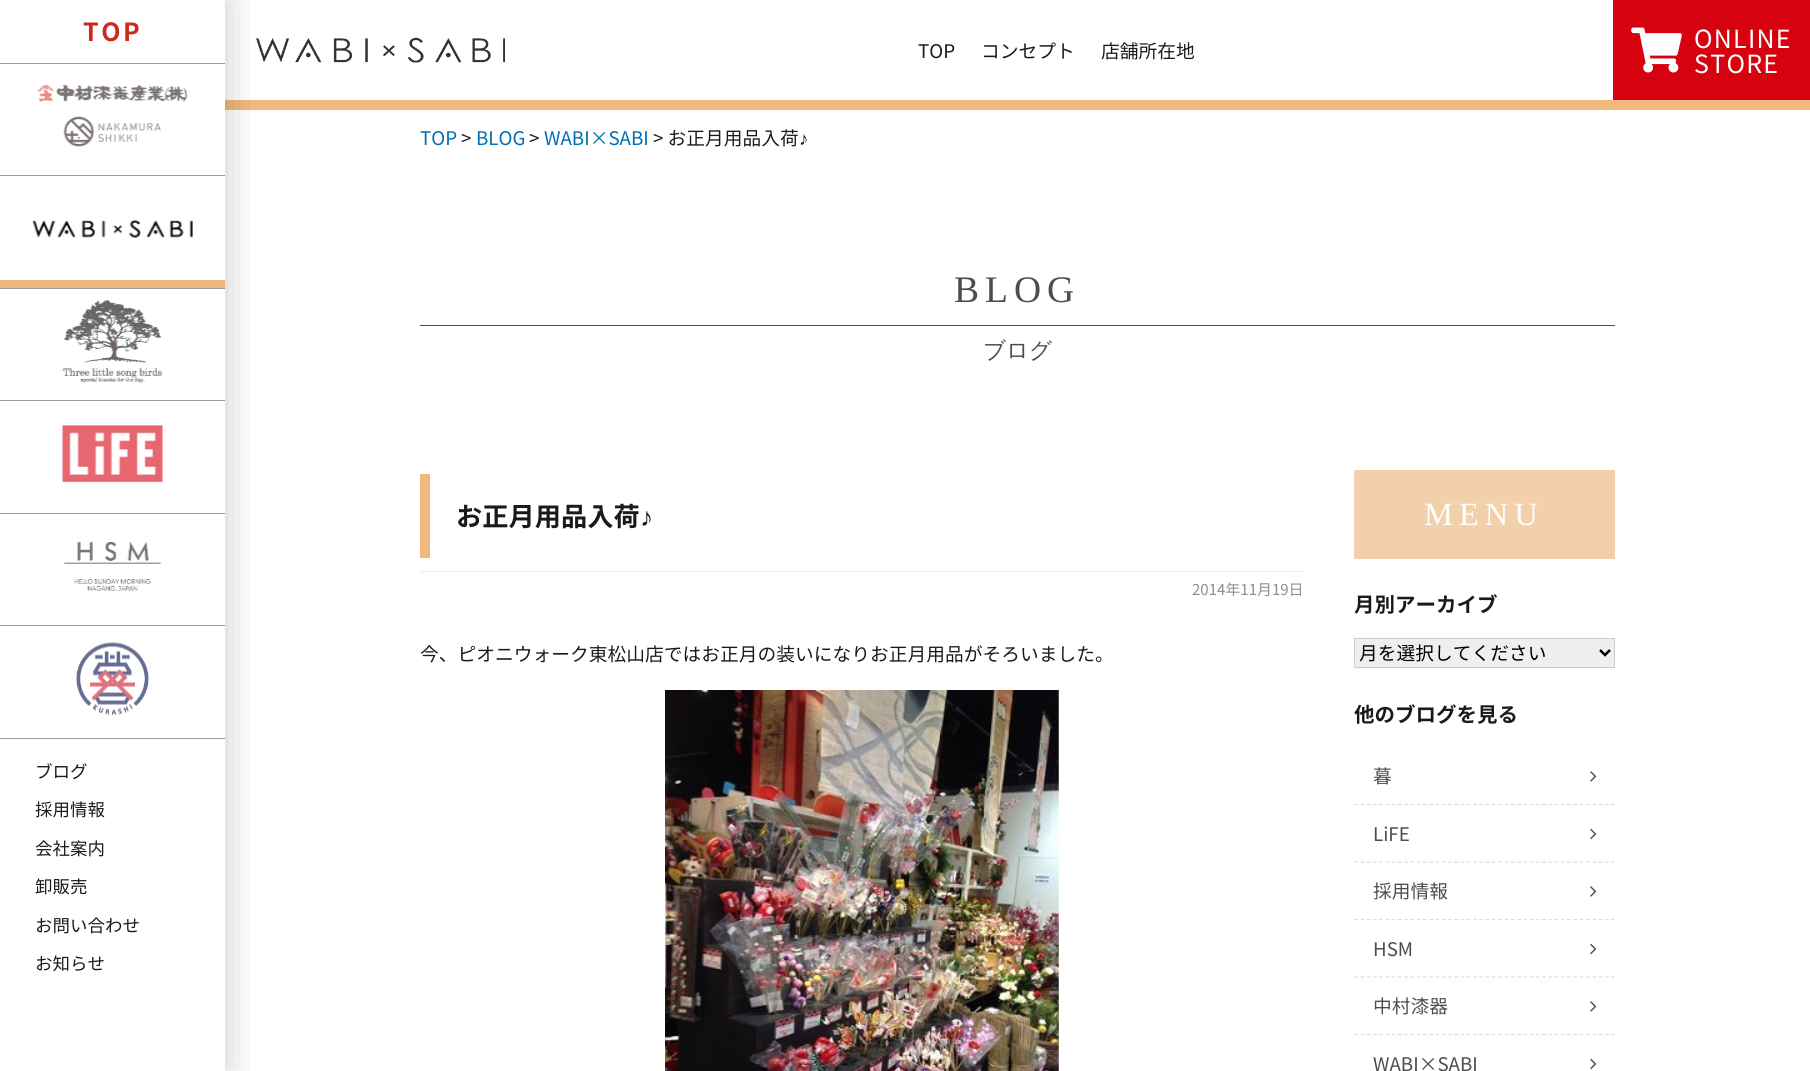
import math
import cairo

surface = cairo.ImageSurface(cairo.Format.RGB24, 1810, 1071)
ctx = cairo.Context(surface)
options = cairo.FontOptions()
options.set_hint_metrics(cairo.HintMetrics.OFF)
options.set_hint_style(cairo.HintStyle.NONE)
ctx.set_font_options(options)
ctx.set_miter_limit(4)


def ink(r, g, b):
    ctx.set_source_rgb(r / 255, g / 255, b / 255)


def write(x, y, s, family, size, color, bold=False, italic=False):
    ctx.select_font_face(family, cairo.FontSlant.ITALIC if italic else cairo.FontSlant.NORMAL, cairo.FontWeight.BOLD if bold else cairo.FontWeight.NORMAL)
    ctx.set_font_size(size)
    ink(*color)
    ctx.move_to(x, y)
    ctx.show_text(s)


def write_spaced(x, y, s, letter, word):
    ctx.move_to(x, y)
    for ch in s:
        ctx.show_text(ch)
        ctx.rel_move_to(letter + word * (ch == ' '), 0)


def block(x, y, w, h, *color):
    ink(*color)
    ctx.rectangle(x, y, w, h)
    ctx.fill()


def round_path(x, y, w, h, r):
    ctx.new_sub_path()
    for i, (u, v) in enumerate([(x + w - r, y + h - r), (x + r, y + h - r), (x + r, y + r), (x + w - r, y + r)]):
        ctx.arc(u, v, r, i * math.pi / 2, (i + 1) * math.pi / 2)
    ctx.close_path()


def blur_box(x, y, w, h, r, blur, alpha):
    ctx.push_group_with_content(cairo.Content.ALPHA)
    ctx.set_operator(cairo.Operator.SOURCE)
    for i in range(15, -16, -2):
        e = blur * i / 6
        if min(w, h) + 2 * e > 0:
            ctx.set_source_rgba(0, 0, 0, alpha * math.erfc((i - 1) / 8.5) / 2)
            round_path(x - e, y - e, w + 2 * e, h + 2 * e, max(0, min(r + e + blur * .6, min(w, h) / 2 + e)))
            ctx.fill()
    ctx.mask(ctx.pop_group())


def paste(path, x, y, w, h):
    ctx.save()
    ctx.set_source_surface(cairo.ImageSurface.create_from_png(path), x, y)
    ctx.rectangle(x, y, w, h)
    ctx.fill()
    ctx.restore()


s1 = dict(family="Noto Sans JP", size=17.5, color=(26, 26, 26))
s2 = dict(family="Noto Sans JP", size=18.75, color=(26, 26, 26))
s3 = dict(family="Noto Sans JP", size=18.75, color=(0, 110, 182))
s4 = dict(family="Liberation Sans", size=18.75, color=(26, 26, 26))
s5 = dict(family="WenQuanYi Zen Hei Medium", size=22.5, color=(77, 77, 77))
s6 = dict(family="Noto Sans JP", size=26.25, color=(26, 26, 26), bold=True)
s7 = dict(family="Liberation Sans", size=26.25, color=(26, 26, 26), bold=True)
s8 = dict(family="Noto Sans JP", size=15, color=(142, 142, 142))
s9 = dict(family="Noto Sans JP", size=20.5, color=(26, 26, 26), bold=True)
s10 = dict(family="Noto Sans JP", size=18.75, color=(0, 0, 0))
s11 = dict(family="Noto Sans JP", size=18.75, color=(77, 77, 77))

ink(255, 255, 255)
ctx.paint()
block(225, 100, 1585, 10, 239, 184, 124)
paste("pic7.png", 256, 37, 249, 26)
ctx.save()
ctx.rectangle(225, 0, 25, 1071)
ctx.clip()
ink(0, 0, 0)
blur_box(0, 0, 225, 1071, 0, 19, 0.22)
ctx.restore()
block(0, 63, 225, 1, 153, 153, 153)
ctx.select_font_face("Noto Sans JP", cairo.FontSlant.NORMAL, cairo.FontWeight.BOLD)
ctx.set_font_size(25)
ink(204, 42, 30)
write_spaced(83, 41, "TOP", 2.5, 0)
paste("pic1.png", 37, 84, 151, 63)
block(0, 175, 225, 1, 153, 153, 153)
block(0, 280, 225, 8, 239, 184, 124)
paste("pic2.png", 32, 219, 161, 19)
block(0, 288, 225, 1, 153, 153, 153)
paste("pic3.png", 62, 300, 100, 83)
block(0, 400, 225, 1, 153, 153, 153)
paste("pic4.png", 61, 425, 102, 58)
block(0, 513, 225, 1, 153, 153, 153)
paste("pic5.png", 63, 541, 98, 50)
block(0, 625, 225, 1, 153, 153, 153)
paste("pic6.png", 76, 642, 73, 74)
block(0, 738, 225, 1, 153, 153, 153)
write(35, 778, "ブログ", **s1)
write(35, 816, "採用情報", **s1)
write(35, 855, "会社案内", **s1)
write(35, 893, "卸販売", **s1)
write(35, 932, "お問い合わせ", **s1)
write(35, 970, "お知らせ", **s1)
write(918, 58, "TOP", **s2)
write(981, 58, "コンセプト", **s2)
write(1101, 58, "店舗所在地", **s2)
write(420, 145, "TOP", **s3)
write(461, 145, ">", **s2)
write(476, 145, "BLOG", **s3)
write(529, 145, ">", **s2)
write(544, 145, "WABI×SABI", **s3)
write(653, 145, "> お正月用品入荷", **s2)
write(799, 145, "♪", **s4)
ctx.select_font_face("Liberation Serif")
ctx.set_font_size(37.5)
ink(77, 77, 77)
write_spaced(954, 302, "BLOG", 6, 0)
block(420, 325, 1195, 1, 77, 77, 77)
write(983, 358, "ブログ", **s5)
block(420, 474, 10, 84, 239, 184, 124)
write(456, 526, "お正月用品入荷", **s6)
write(640, 526, "♪", **s7)
block(420, 571, 884, 1, 238, 238, 238)
write(1192, 595, "2014年11月19日", **s8)
write(420, 661, "今、ピオニウォーク東松山店ではお正月の装いになりお正月用品がそろいました。", **s2)
paste("pic8.png", 665, 690, 394, 381)
block(1354, 470, 261, 89, 241, 208, 171)
ctx.select_font_face("Liberation Serif")
ctx.set_font_size(32.5)
ink(255, 255, 255)
write_spaced(1424, 525, "MENU", 6, 0)
write(1354, 612, "月別アーカイブ", **s9)
block(1355, 639, 259, 28, 239, 239, 239)
ctx.new_path()
ctx.move_to(1600, 650)
ctx.line_to(1605, 655)
ctx.line_to(1610, 650)
ink(0, 0, 0)
ctx.set_line_width(2.5)
ctx.stroke()
ctx.rectangle(1354.5, 638.5, 260, 29)
ink(204, 204, 204)
ctx.set_line_width(1)
ctx.stroke()
write(1359, 660, "月を選択してください", **s10)
write(1354, 722, "他のブログを見る", **s9)
ctx.new_path()
ctx.move_to(1354, 804.5)
ctx.line_to(1615, 804.5)
ink(221, 221, 221)
ctx.set_line_width(1.2)
ctx.set_dash([3.75, 2.52])
ctx.stroke()
write(1373, 783, "暮", **s11)
paste("pic9.png", 1590, 771, 7, 11)
ctx.new_path()
ctx.move_to(1354, 862)
ctx.line_to(1615, 862)
ink(221, 221, 221)
ctx.stroke()
write(1373, 841, "LiFE", **s11)
paste("pic10.png", 1590, 828, 7, 12)
ctx.new_path()
ctx.move_to(1354, 919.5)
ctx.line_to(1615, 919.5)
ink(221, 221, 221)
ctx.stroke()
write(1373, 898, "採用情報", **s11)
paste("pic9.png", 1590, 886, 7, 11)
ctx.new_path()
ctx.move_to(1354, 977)
ctx.line_to(1615, 977)
ink(221, 221, 221)
ctx.stroke()
write(1373, 956, "HSM", **s11)
paste("pic10.png", 1590, 943, 7, 12)
ctx.new_path()
ctx.move_to(1354, 1034.5)
ctx.line_to(1615, 1034.5)
ink(221, 221, 221)
ctx.stroke()
write(1373, 1013, "中村漆器", **s11)
paste("pic9.png", 1590, 1001, 7, 11)
write(1373, 1071, "WABI×SABI", **s11)
paste("pic10.png", 1590, 1058, 7, 12)
block(1613, 0, 197, 100, 215, 2, 15)
paste("pic11.png", 1631, 27, 51, 46)
ctx.set_font_size(25)
ink(255, 255, 255)
write_spaced(1694, 48, "ONLINE", 1.25, 0)
write_spaced(1694, 73, "STORE", 1.25, 0)
surface.write_to_png("screenshot.png")
